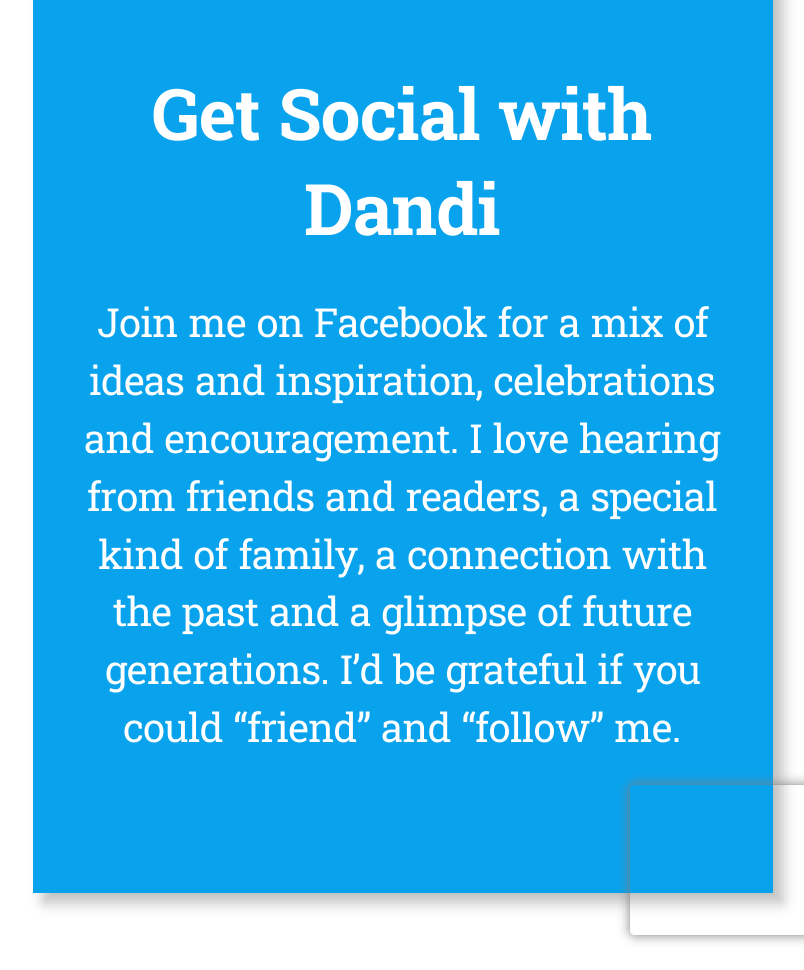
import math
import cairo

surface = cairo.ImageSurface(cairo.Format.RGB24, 804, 970)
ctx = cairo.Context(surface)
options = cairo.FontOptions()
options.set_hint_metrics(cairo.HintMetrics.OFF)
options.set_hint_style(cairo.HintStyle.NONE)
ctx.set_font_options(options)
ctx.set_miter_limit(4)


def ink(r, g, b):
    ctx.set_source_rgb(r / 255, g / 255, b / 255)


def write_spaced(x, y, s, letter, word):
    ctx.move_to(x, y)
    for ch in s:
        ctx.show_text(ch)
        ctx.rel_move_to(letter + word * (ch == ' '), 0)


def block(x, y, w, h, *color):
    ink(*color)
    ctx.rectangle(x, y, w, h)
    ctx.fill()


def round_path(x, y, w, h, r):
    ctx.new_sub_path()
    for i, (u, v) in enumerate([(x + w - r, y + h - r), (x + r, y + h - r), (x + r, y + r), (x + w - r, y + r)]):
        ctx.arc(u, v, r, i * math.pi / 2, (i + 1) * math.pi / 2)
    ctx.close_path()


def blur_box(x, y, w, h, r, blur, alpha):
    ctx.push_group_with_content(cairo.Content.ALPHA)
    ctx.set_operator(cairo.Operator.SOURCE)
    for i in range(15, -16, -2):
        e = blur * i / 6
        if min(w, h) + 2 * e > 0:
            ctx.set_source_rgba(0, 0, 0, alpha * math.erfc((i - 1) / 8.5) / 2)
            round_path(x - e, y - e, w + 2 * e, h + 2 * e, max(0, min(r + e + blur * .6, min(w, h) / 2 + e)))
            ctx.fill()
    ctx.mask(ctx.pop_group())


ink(255, 255, 255)
ctx.paint()
ink(0, 0, 0)
blur_box(43, -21, 740, 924, 0, 7, 0.25)
block(33, 0, 740, 893, 8, 162, 237)
ctx.select_font_face("Roboto Slab", cairo.FontSlant.NORMAL, cairo.FontWeight.BOLD)
ctx.set_font_size(71)
ink(255, 255, 255)
write_spaced(152, 140, "Get Social with", -0.8, 1.5)
write_spaced(304, 235, "Dandi", -0.8, 0)
ctx.select_font_face("Roboto Slab")
ctx.set_font_size(40)
write_spaced(97, 337, "Join me on Facebook for a mix of", -0.8, 1.5)
write_spaced(89, 395, "ideas and inspiration, celebrations", -0.8, 1.5)
write_spaced(84, 453, "and encouragement. I love hearing", -0.8, 1.5)
write_spaced(87, 511, "from friends and readers, a special", -0.8, 1.5)
write_spaced(98, 569, "kind of family, a connection with", -0.8, 1.5)
write_spaced(113, 626, "the past and a glimpse of future", -0.8, 1.5)
write_spaced(105, 684, "generations. I’d be grateful if you", -0.8, 1.5)
write_spaced(123, 742, "could “friend” and “follow” me.", -0.8, 1.5)
ctx.save()
ctx.set_fill_rule(cairo.FillRule.EVEN_ODD)
ctx.new_path()
ctx.move_to(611, 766)
ctx.line_to(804, 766)
ctx.line_to(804, 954)
ctx.line_to(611, 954)
ctx.close_path()
ctx.move_to(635, 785)
ctx.line_to(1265, 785)
ctx.curve_to(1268, 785, 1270, 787, 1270, 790)
ctx.line_to(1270, 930)
ctx.curve_to(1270, 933, 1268, 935, 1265, 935)
ctx.line_to(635, 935)
ctx.curve_to(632, 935, 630, 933, 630, 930)
ctx.line_to(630, 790)
ctx.curve_to(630, 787, 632, 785, 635, 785)
ctx.close_path()
ctx.clip()
ink(128, 128, 128)
blur_box(630, 785, 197, 150, 5, 6, 1)
ctx.restore()
surface.write_to_png("screenshot.png")
